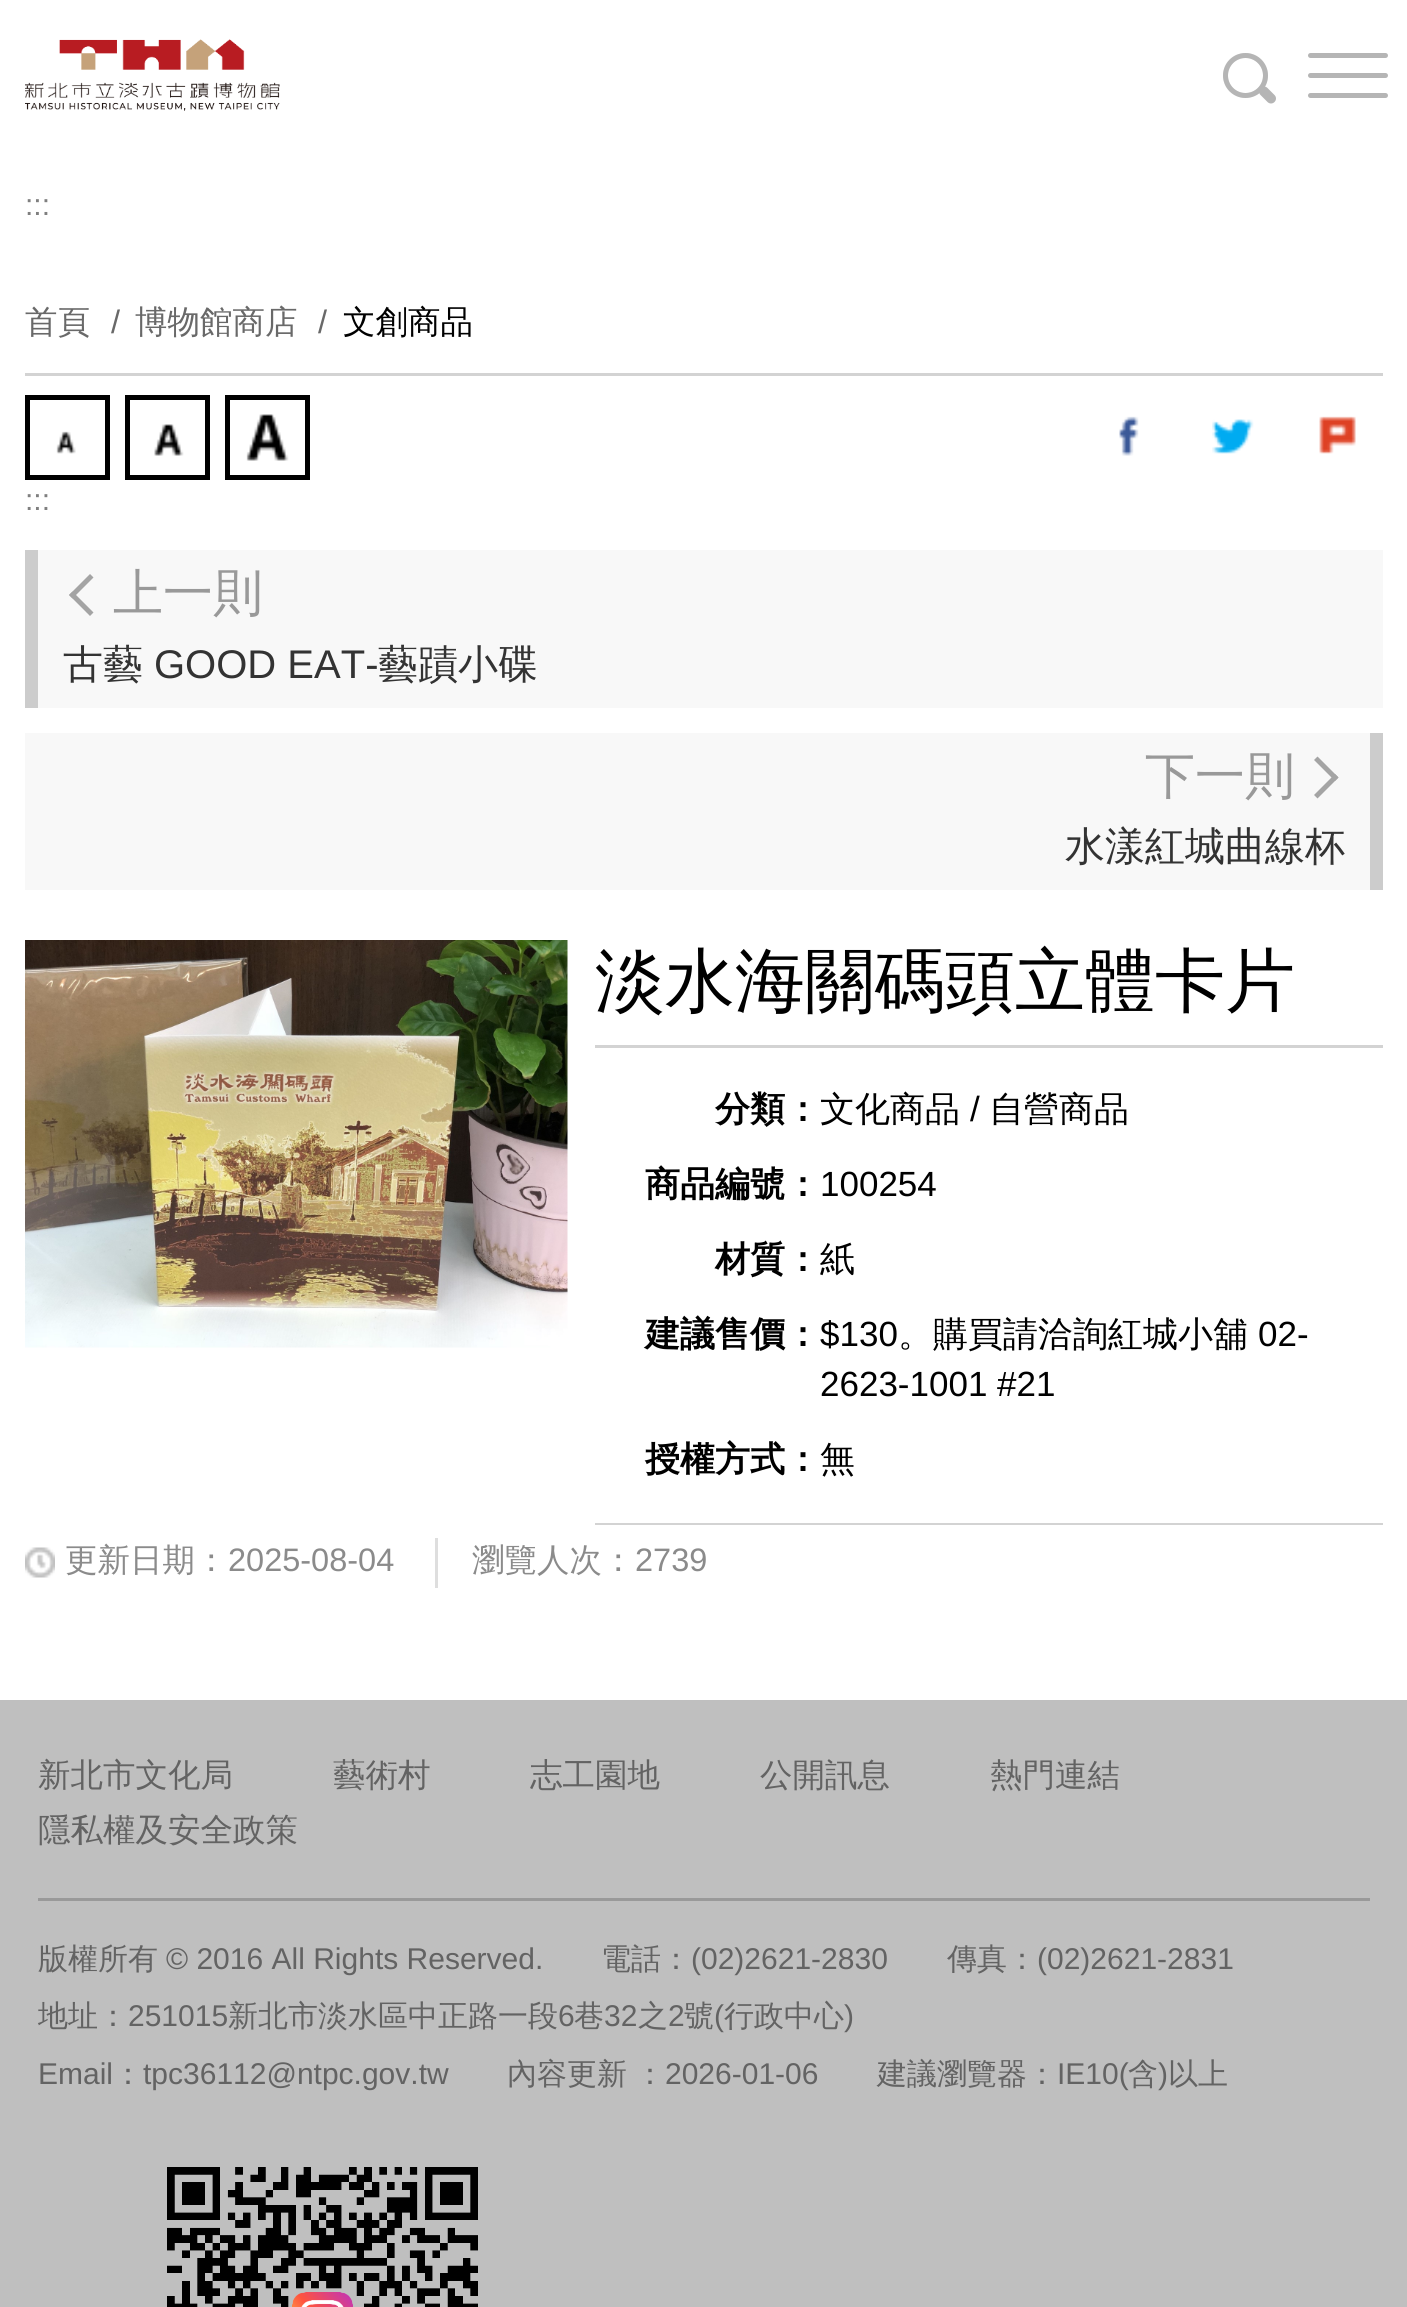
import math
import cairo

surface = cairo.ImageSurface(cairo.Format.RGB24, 1407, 2307)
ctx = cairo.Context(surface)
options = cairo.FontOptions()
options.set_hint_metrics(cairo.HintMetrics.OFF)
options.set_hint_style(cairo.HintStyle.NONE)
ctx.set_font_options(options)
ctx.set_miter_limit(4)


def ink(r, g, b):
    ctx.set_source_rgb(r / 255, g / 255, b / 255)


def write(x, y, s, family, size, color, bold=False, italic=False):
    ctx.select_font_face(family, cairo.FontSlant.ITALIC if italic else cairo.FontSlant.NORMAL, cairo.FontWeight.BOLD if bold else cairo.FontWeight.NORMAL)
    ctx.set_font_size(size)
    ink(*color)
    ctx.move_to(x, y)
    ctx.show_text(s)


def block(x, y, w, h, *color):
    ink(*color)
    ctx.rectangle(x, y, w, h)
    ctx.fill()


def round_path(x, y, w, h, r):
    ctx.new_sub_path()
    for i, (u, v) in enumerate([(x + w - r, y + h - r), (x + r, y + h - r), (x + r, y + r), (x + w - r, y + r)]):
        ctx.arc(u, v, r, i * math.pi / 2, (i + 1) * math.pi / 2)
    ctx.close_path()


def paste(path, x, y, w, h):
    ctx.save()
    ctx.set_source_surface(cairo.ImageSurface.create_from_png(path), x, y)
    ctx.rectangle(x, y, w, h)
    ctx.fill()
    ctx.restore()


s1 = dict(family="Liberation Sans", size=30, color=(127, 127, 127))
s2 = dict(family="WenQuanYi Zen Hei Medium", size=32.5, color=(105, 105, 105))
s3 = dict(family="Liberation Sans", size=32.5, color=(105, 105, 105))
s4 = dict(family="WenQuanYi Zen Hei Medium", size=32.5, color=(0, 0, 0))
s5 = dict(family="WenQuanYi Zen Hei Medium", size=50, color=(153, 153, 153))
s6 = dict(family="WenQuanYi Zen Hei Medium", size=40, color=(51, 51, 51))
s7 = dict(family="Liberation Sans", size=40, color=(51, 51, 51))
s8 = dict(family="WenQuanYi Zen Hei Medium", size=70, color=(0, 0, 0))
s9 = dict(family="WenQuanYi Zen Hei", size=35, color=(0, 0, 0), bold=True)
s10 = dict(family="WenQuanYi Zen Hei Medium", size=35, color=(0, 0, 0))
s11 = dict(family="Liberation Sans", size=35, color=(0, 0, 0))
s12 = dict(family="WenQuanYi Zen Hei Medium", size=32.5, color=(139, 139, 139))
s13 = dict(family="Liberation Sans", size=32.5, color=(139, 139, 139))
s14 = dict(family="WenQuanYi Zen Hei Medium", size=32.5, color=(99, 99, 99))
s15 = dict(family="WenQuanYi Zen Hei Medium", size=30, color=(99, 99, 99))
s16 = dict(family="Liberation Sans", size=30, color=(99, 99, 99))

ink(255, 255, 255)
ctx.paint()
ctx.arc(1245.5, 75.5, 20, 0, 2 * math.pi)
ink(233, 233, 233)
ctx.set_line_width(5)
ctx.stroke()
paste("pic1.png", 25, 39, 255, 72)
ctx.arc(1245.5, 75.5, 20, 0, 2 * math.pi)
ink(181, 181, 181)
ctx.stroke()
round_path(1308, 53, 80, 5, 2.5)
ctx.fill()
round_path(1308, 73, 80, 5, 2.5)
ctx.fill()
round_path(1308, 93, 80, 5, 2.5)
ctx.fill()
ctx.new_path()
ctx.move_to(1267.5, 88)
ctx.line_to(1274.5, 95)
ctx.curve_to(1276.5, 97, 1276.5, 100, 1274.5, 102)
ctx.curve_to(1272.5, 104, 1269.5, 104, 1267.5, 102)
ctx.line_to(1260.5, 95)
ctx.curve_to(1258.5, 93, 1258.5, 90, 1260.5, 88)
ctx.curve_to(1262.5, 86, 1265.5, 86, 1267.5, 88)
ctx.close_path()
ctx.fill()
write(25, 215, ":::", **s1)
write(25, 333, "首頁", **s2)
write(111, 333, "/", **s3)
write(135, 333, "博物館商店", **s2)
write(318, 333, "/", **s3)
write(343, 333, "文創商品", **s4)
block(25, 373, 1358, 3, 211, 211, 211)
ctx.rectangle(27.5, 397.5, 80, 80)
ink(0, 0, 0)
ctx.stroke()
paste("pic2.png", 56, 431, 20, 23)
ctx.rectangle(127.5, 397.5, 80, 80)
ctx.stroke()
paste("pic3.png", 154, 424, 30, 32)
ctx.rectangle(227.5, 397.5, 80, 80)
ctx.stroke()
paste("pic4.png", 246, 414, 43, 47)
paste("pic5.png", 1119, 416, 20, 40)
paste("pic6.png", 1212, 419, 42, 35)
paste("pic7.png", 1319, 416, 37, 38)
write(25, 510, ":::", **s1)
block(38, 550, 1345, 158, 248, 248, 248)
block(25, 550, 13, 158, 204, 204, 204)
ink(164, 164, 164)
ctx.new_path()
ctx.move_to(72.5, 591.5)
ctx.line_to(93.5, 612.5)
ctx.line_to(90, 616)
ctx.line_to(69, 595)
ctx.close_path()
ctx.fill()
ctx.new_path()
ctx.move_to(90, 574)
ctx.line_to(93.5, 577.5)
ctx.line_to(72.5, 598.5)
ctx.line_to(69, 595)
ctx.close_path()
ctx.fill()
write(113, 610, "上一則", **s5)
write(63, 678, "古藝", **s6)
write(154, 678, "GOOD EAT-", **s7)
write(378, 678, "藝蹟小碟", **s6)
block(25, 733, 1345, 157, 248, 248, 248)
block(1370, 733, 13, 157, 204, 204, 204)
write(1145, 793, "下一則", **s5)
ink(164, 164, 164)
ctx.new_path()
ctx.move_to(1335, 781)
ctx.line_to(1314, 760)
ctx.line_to(1317.5, 756.5)
ctx.line_to(1338.5, 777.5)
ctx.close_path()
ctx.fill()
ctx.new_path()
ctx.move_to(1317.5, 798.5)
ctx.line_to(1314, 795)
ctx.line_to(1335, 774)
ctx.line_to(1338.5, 777.5)
ctx.close_path()
ctx.fill()
write(1065, 860, "水漾紅城曲線杯", **s6)
paste("pic8.png", 25, 940, 543, 408)
block(595, 1045, 788, 3, 211, 211, 211)
write(595, 1005, "淡水海關碼頭立體卡片", **s8)
block(595, 1523, 788, 2, 211, 211, 211)
write(715, 1121, "分類：", **s9)
write(820, 1121, "文化商品", **s10)
write(970, 1121, "/", **s11)
write(989, 1121, "自營商品", **s10)
write(645, 1196, "商品編號：", **s9)
write(820, 1196, "100254", **s11)
write(715, 1271, "材質：", **s9)
write(820, 1271, "紙", **s10)
write(645, 1346, "建議售價：", **s9)
write(820, 1346, "$130", **s11)
write(898, 1346, "。購買請洽詢紅城小舖", **s10)
write(1258, 1346, "02-", **s11)
write(820, 1396, "2623-1001 #21", **s11)
write(645, 1471, "授權方式：", **s9)
write(820, 1471, "無", **s10)
paste("pic9.png", 25, 1547, 30, 31)
write(65, 1571, "更新日期：", **s12)
write(228, 1571, "2025-08-04", **s13)
block(435, 1538, 3, 50, 222, 222, 222)
write(472, 1571, "瀏覽人次：", **s12)
write(635, 1571, "2739", **s13)
block(0, 1700, 1407, 607, 191, 191, 191)
block(38, 1898, 1332, 3, 153, 153, 153)
write(38, 1786, "新北市文化局", **s14)
write(333, 1786, "藝術村", **s14)
write(530, 1786, "志工園地", **s14)
write(760, 1786, "公開訊息", **s14)
write(990, 1786, "熱門連結", **s14)
write(38, 1841, "隱私權及安全政策", **s14)
write(38, 1969, "版權所有", **s15)
write(166, 1969, "© 2016 All Rights Reserved.", **s16)
write(601, 1969, "電話：", **s15)
write(691, 1969, "(02)2621-2830", **s16)
write(947, 1969, "傳真：", **s15)
write(1037, 1969, "(02)2621-2831", **s16)
write(38, 2026, "地址：", **s15)
write(128, 2026, "251015", **s16)
write(228, 2026, "新北市淡水區中正路一段", **s15)
write(558, 2026, "6", **s16)
write(574, 2026, "巷", **s15)
write(604, 2026, "32", **s16)
write(638, 2026, "之", **s15)
write(668, 2026, "2", **s16)
write(684, 2026, "號", **s15)
write(714, 2026, "(", **s16)
write(724, 2026, "行政中心", **s15)
write(844, 2026, ")", **s16)
write(38, 2084, "Email", **s16)
write(113, 2084, "：", **s15)
write(143, 2084, "tpc36112@ntpc.gov.tw", **s16)
write(507, 2084, "內容更新", **s15)
write(635, 2084, "：", **s15)
write(665, 2084, "2026-01-06", **s16)
write(877, 2084, "建議瀏覽器：", **s15)
write(1057, 2084, "IE10(", **s16)
write(1128, 2084, "含", **s15)
write(1158, 2084, ")", **s16)
write(1168, 2084, "以上", **s15)
paste("pic10.png", 167, 2167, 311, 140)
surface.write_to_png("screenshot.png")
